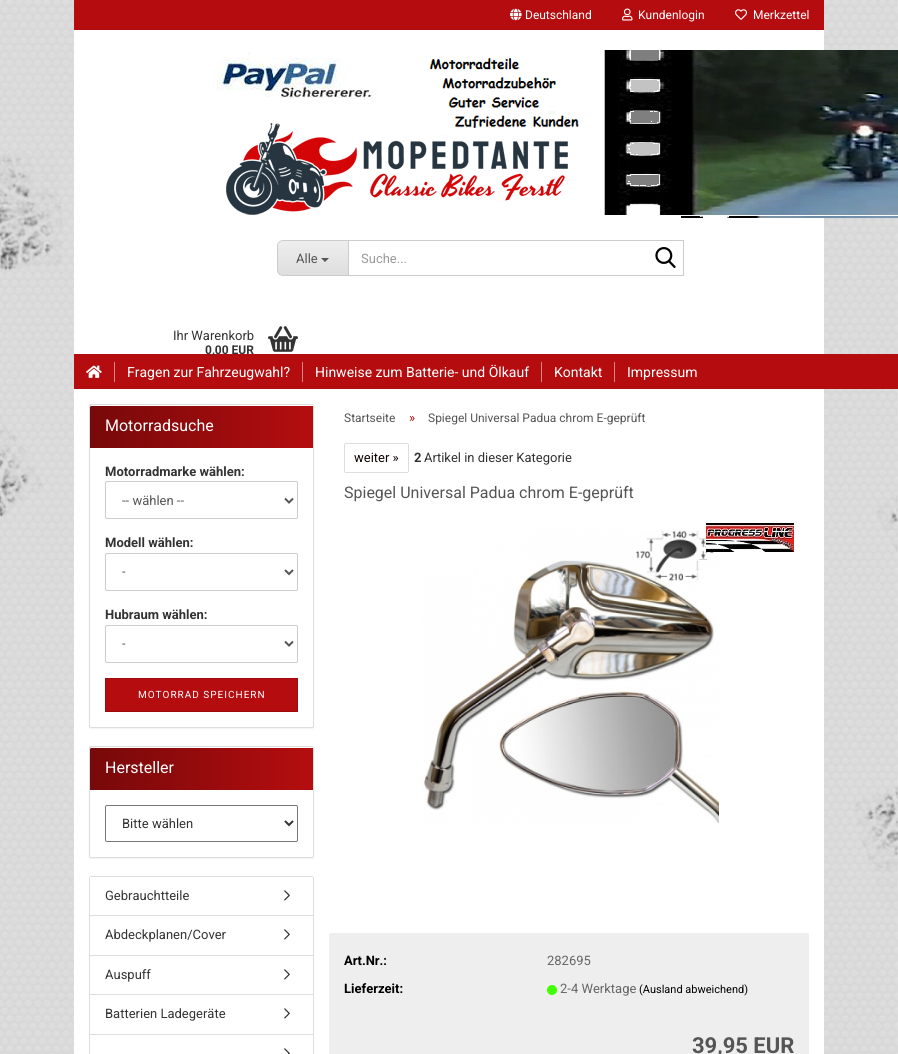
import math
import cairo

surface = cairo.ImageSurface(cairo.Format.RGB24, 898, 1054)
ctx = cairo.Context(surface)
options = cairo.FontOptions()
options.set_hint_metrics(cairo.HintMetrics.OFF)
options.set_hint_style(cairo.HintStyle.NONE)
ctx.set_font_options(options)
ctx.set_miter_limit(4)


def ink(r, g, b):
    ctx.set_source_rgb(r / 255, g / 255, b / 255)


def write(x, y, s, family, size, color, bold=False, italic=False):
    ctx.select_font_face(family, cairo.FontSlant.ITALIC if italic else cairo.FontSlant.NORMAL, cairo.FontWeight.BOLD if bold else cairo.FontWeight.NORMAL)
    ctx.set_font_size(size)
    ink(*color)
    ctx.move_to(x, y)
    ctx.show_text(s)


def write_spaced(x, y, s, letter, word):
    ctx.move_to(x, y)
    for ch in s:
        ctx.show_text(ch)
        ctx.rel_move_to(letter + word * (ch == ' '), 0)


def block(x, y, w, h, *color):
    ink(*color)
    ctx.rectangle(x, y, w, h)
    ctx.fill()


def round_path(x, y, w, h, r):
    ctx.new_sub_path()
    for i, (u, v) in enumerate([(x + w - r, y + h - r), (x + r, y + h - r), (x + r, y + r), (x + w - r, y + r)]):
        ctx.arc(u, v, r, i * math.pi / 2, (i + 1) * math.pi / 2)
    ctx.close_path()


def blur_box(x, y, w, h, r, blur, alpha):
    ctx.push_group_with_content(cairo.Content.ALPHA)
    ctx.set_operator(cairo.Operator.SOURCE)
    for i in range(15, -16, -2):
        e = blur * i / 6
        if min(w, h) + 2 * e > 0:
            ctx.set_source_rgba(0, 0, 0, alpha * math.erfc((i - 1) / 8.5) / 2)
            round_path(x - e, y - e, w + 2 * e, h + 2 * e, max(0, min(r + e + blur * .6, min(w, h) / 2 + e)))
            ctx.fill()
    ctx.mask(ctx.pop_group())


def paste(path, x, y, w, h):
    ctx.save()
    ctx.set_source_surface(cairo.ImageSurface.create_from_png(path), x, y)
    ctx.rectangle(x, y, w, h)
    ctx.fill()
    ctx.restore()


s1 = dict(family="Roboto", size=12, color=(255, 255, 255))
s2 = dict(family="Roboto", size=13, color=(85, 85, 85))
s3 = dict(family="Roboto", size=13, color=(153, 153, 153))
s4 = dict(family="Roboto", size=13, color=(51, 51, 51))
s5 = dict(family="Roboto", size=12, color=(51, 51, 51), bold=True)
s6 = dict(family="Roboto", size=14, color=(255, 255, 255))
s7 = dict(family="Roboto", size=16, color=(255, 255, 255))
s8 = dict(family="Roboto", size=13, color=(51, 51, 51), bold=True)
s9 = dict(family="Roboto", size=12, color=(85, 85, 85))
s10 = dict(family="Roboto", size=13, color=(181, 13, 15))
s11 = dict(family="Roboto", size=13, color=(14, 1, 1))
s12 = dict(family="Roboto", size=16, color=(85, 85, 85))
s13 = dict(family="Roboto", size=13, color=(0, 0, 0), bold=True)
s14 = dict(family="Roboto", size=13, color=(102, 102, 102))
s15 = dict(family="Roboto", size=11, color=(0, 0, 0))
s16 = dict(family="Roboto", size=22, color=(85, 85, 85), bold=True)

ink(255, 255, 255)
ctx.paint()
paste("pic1.png", 0, 0, 898, 1054)
block(74, 30, 750, 1024, 255, 255, 255)
block(74, 0, 750, 30, 181, 13, 15)
paste("pic2.png", 510, 8, 12, 13)
write(525, 19, "Deutschland", **s1)
paste("pic3.png", 622, 8, 11, 13)
write(638, 19, "Kundenlogin", **s1)
paste("pic4.png", 735, 9, 12, 11)
write(753, 19, "Merkzettel", **s1)
paste("pic5.png", 217, 50, 681, 168)
ctx.save()
ctx.new_path()
ctx.move_to(283, 240)
ctx.line_to(348, 240)
ctx.line_to(348, 276)
ctx.line_to(283, 276)
ctx.curve_to(279.5, 276, 277, 273.5, 277, 270)
ctx.line_to(277, 246)
ctx.curve_to(277, 242.5, 279.5, 240, 283, 240)
ctx.close_path()
ctx.clip()
gradient = cairo.LinearGradient(313, 241, 313, 275)
gradient.add_color_stop_rgba(0, 0.933, 0.933, 0.933, 1)
gradient.add_color_stop_rgba(1, 0.871, 0.871, 0.871, 1)
ctx.set_source(gradient)
ctx.rectangle(277, 241, 71, 34)
ctx.fill()
ctx.restore()
ink(204, 204, 204)
ctx.set_fill_rule(cairo.FillRule.EVEN_ODD)
ctx.new_path()
ctx.move_to(283, 240)
ctx.line_to(348, 240)
ctx.line_to(348, 276)
ctx.line_to(283, 276)
ctx.curve_to(280, 276, 277, 273, 277, 270)
ctx.line_to(277, 246)
ctx.curve_to(277, 243, 280, 240, 283, 240)
ctx.close_path()
ctx.move_to(283, 241)
ctx.line_to(348, 241)
ctx.line_to(348, 275)
ctx.line_to(283, 275)
ctx.curve_to(280, 275, 278, 273, 278, 270)
ctx.line_to(278, 246)
ctx.curve_to(278, 243, 280, 241, 283, 241)
ctx.close_path()
ctx.fill()
write(296, 263, "Alle", **s2)
ctx.set_fill_rule(cairo.FillRule.WINDING)
ctx.new_path()
ctx.move_to(321, 258)
ctx.line_to(329, 258)
ctx.line_to(325, 262)
ctx.close_path()
ctx.fill()
ctx.rectangle(348.5, 240.5, 335, 35)
ink(204, 204, 204)
ctx.set_line_width(1)
ctx.stroke()
write(361, 263, "Suche...", **s3)
paste("pic6.png", 655, 247, 21, 21)
write(173, 340, "Ihr Warenkorb", **s4)
block(74, 354, 824, 35, 181, 13, 15)
write(205, 354, "0,00 EUR", **s5)
paste("pic7.png", 268, 326, 30, 26)
block(114, 362, 1, 20, 218, 134, 135)
paste("pic8.png", 86, 365, 16, 13)
block(302, 362, 1, 20, 218, 134, 135)
write(127, 377, "Fragen zur Fahrzeugwahl?", **s6)
block(541, 362, 1, 20, 218, 134, 135)
write(315, 377, "Hinweise zum Batterie- und Ölkauf", **s6)
block(614, 362, 1, 20, 218, 134, 135)
write(554, 377, "Kontakt", **s6)
write(627, 377, "Impressum", **s6)
ink(0, 0, 0)
blur_box(89, 405, 225, 324, 2, 0.5, 0.05)
ink(255, 255, 255)
round_path(89.5, 404.5, 224, 323, 1.5)
ctx.fill_preserve()
ink(221, 221, 221)
ctx.stroke()
gradient = cairo.LinearGradient(90, 427, 313, 427)
gradient.add_color_stop_rgba(0, 0.467, 0.035, 0.039, 1)
gradient.add_color_stop_rgba(1, 0.71, 0.051, 0.059, 1)
ctx.set_source(gradient)
ctx.new_path()
ctx.move_to(91, 405)
ctx.line_to(312, 405)
ctx.curve_to(312.5, 405, 313, 405.5, 313, 406)
ctx.line_to(313, 448)
ctx.line_to(90, 448)
ctx.line_to(90, 406)
ctx.curve_to(90, 405.5, 90.5, 405, 91, 405)
ctx.close_path()
ctx.fill()
ink(255, 255, 255)
ctx.new_path()
ctx.move_to(91, 406)
ctx.line_to(313, 406)
ctx.line_to(313, 407)
ctx.line_to(313, 405)
ctx.line_to(91, 405)
ctx.curve_to(90, 405, 90, 406, 90, 407)
ctx.close_path()
ctx.fill()
write(105, 431, "Motorradsuche", **s7)
write(105, 476, "Motorradmarke wählen:", **s8)
round_path(105.5, 481.5, 192, 37, 1.5)
ink(204, 204, 204)
ctx.stroke()
ctx.new_path()
ctx.move_to(285, 498.5)
ctx.line_to(289, 502.5)
ctx.line_to(293, 498.5)
ink(85, 85, 85)
ctx.set_line_width(2)
ctx.stroke()
write(122, 505, "-- wählen --", **s2)
write(105, 547, "Modell wählen:", **s8)
round_path(105.5, 553.5, 192, 37, 1.5)
ink(204, 204, 204)
ctx.set_line_width(1)
ctx.stroke()
ctx.new_path()
ctx.move_to(285, 570)
ctx.line_to(289, 574)
ctx.line_to(293, 570)
ink(85, 85, 85)
ctx.set_line_width(2)
ctx.stroke()
write(122, 576, "-", **s2)
write(105, 619, "Hubraum wählen:", **s8)
round_path(105.5, 625.5, 192, 37, 1.5)
ink(204, 204, 204)
ctx.set_line_width(1)
ctx.stroke()
ctx.new_path()
ctx.move_to(285, 641.5)
ctx.line_to(289, 645.5)
ctx.line_to(293, 641.5)
ink(85, 85, 85)
ctx.set_line_width(2)
ctx.stroke()
write(122, 648, "-", **s2)
ink(181, 13, 15)
ctx.rectangle(105.5, 678.5, 192, 33)
ctx.fill_preserve()
ink(157, 11, 13)
ctx.set_line_width(1)
ctx.stroke()
ctx.set_font_size(10)
ink(255, 255, 255)
write_spaced(138, 698, "MOTORRAD SPEICHERN", 1, 0)
ink(0, 0, 0)
blur_box(89, 747, 225, 112, 2, 0.5, 0.05)
ink(255, 255, 255)
round_path(89.5, 746.5, 224, 111, 1.5)
ctx.fill_preserve()
ink(221, 221, 221)
ctx.stroke()
gradient = cairo.LinearGradient(90, 769, 313, 769)
gradient.add_color_stop_rgba(0, 0.467, 0.035, 0.039, 1)
gradient.add_color_stop_rgba(1, 0.71, 0.051, 0.059, 1)
ctx.set_source(gradient)
ctx.new_path()
ctx.move_to(91, 747)
ctx.line_to(312, 747)
ctx.curve_to(312.5, 747, 313, 747.5, 313, 748)
ctx.line_to(313, 790)
ctx.line_to(90, 790)
ctx.line_to(90, 748)
ctx.curve_to(90, 747.5, 90.5, 747, 91, 747)
ctx.close_path()
ctx.fill()
ink(255, 255, 255)
ctx.new_path()
ctx.move_to(91, 748)
ctx.line_to(313, 748)
ctx.line_to(313, 749)
ctx.line_to(313, 747)
ctx.line_to(91, 747)
ctx.curve_to(90, 747, 90, 748, 90, 749)
ctx.close_path()
ctx.fill()
write(105, 773, "Hersteller", **s7)
round_path(105.5, 805.5, 192, 36, 1.5)
ink(118, 118, 118)
ctx.stroke()
ctx.new_path()
ctx.move_to(285, 821)
ctx.line_to(289, 825)
ctx.line_to(293, 821)
ink(51, 51, 51)
ctx.set_line_width(2)
ctx.stroke()
write(122, 828, "Bitte wählen", **s4)
block(90, 876, 223, 1, 221, 221, 221)
block(313, 877, 1, 177, 221, 221, 221)
block(89, 877, 1, 177, 221, 221, 221)
block(90, 915, 223, 1, 221, 221, 221)
write(105, 900, "Gebrauchtteile", **s4)
paste("pic9.png", 284, 890, 6, 11)
block(90, 955, 223, 1, 221, 221, 221)
write(105, 939, "Abdeckplanen/Cover", **s4)
paste("pic9.png", 284, 929, 6, 11)
block(90, 994, 223, 1, 221, 221, 221)
write(105, 979, "Auspuff", **s4)
paste("pic9.png", 284, 969, 6, 11)
block(90, 1034, 223, 1, 221, 221, 221)
write(105, 1018, "Batterien Ladegeräte", **s4)
paste("pic9.png", 284, 1008, 6, 11)
paste("pic10.png", 284, 1048, 6, 6)
write(344, 422, "Startseite", **s9)
write(409, 422, "»", **s10)
write(428, 422, "Spiegel Universal Padua chrom E-geprüft", **s9)
round_path(344.5, 443.5, 64, 29, 1.5)
ink(221, 221, 221)
ctx.set_line_width(1)
ctx.stroke()
write(354, 462, "weiter »", **s11)
write(414, 462, "2", **s8)
write(424, 462, "Artikel in dieser Kategorie", **s4)
write(344, 498, "Spiegel Universal Padua chrom E-geprüft", **s12)
paste("pic11.png", 423, 530, 296, 293)
paste("pic12.png", 706, 523, 88, 29)
ink(238, 238, 238)
round_path(329, 933, 480, 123, 2)
ctx.fill()
write(344, 965, "Art.Nr.:", **s13)
write(547, 965, "282695", **s14)
write(344, 993, "Lieferzeit:", **s13)
paste("pic13.png", 547, 985, 10, 10)
write(560, 993, "2-4 Werktage", **s14)
write(639, 993, "(Ausland abweichend)", **s15)
write(692, 1053, "39,95 EUR", **s16)
surface.write_to_png("screenshot.png")
